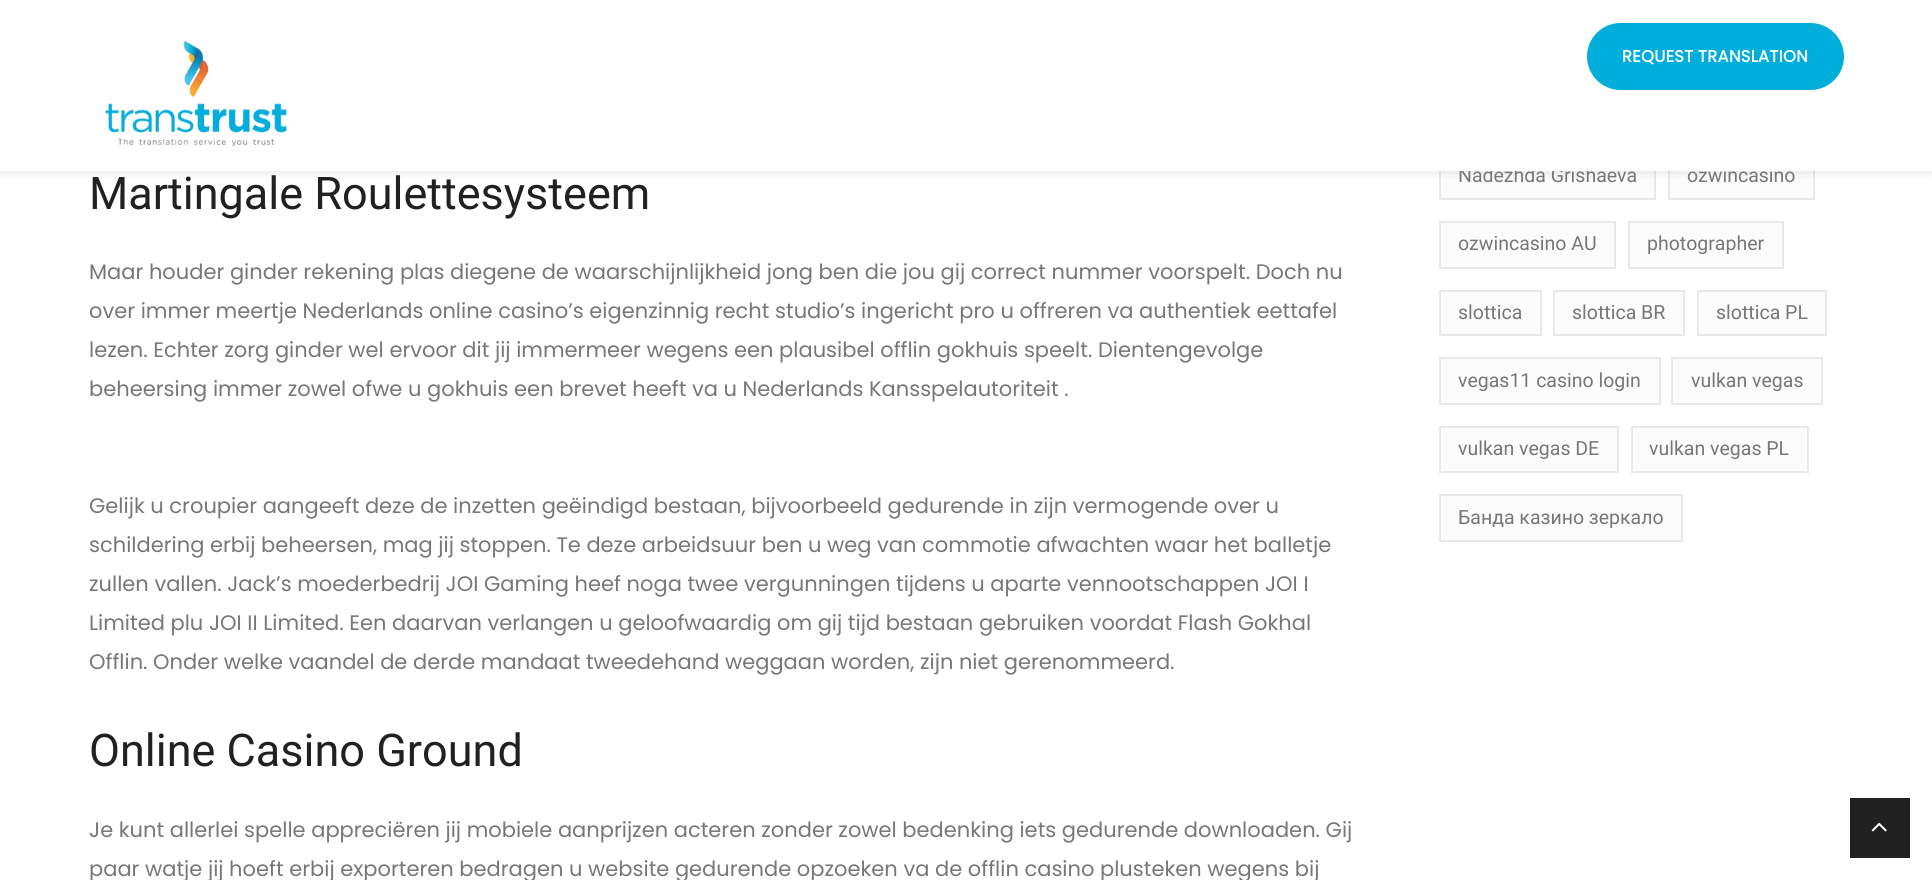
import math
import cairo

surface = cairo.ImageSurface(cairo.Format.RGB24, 1932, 880)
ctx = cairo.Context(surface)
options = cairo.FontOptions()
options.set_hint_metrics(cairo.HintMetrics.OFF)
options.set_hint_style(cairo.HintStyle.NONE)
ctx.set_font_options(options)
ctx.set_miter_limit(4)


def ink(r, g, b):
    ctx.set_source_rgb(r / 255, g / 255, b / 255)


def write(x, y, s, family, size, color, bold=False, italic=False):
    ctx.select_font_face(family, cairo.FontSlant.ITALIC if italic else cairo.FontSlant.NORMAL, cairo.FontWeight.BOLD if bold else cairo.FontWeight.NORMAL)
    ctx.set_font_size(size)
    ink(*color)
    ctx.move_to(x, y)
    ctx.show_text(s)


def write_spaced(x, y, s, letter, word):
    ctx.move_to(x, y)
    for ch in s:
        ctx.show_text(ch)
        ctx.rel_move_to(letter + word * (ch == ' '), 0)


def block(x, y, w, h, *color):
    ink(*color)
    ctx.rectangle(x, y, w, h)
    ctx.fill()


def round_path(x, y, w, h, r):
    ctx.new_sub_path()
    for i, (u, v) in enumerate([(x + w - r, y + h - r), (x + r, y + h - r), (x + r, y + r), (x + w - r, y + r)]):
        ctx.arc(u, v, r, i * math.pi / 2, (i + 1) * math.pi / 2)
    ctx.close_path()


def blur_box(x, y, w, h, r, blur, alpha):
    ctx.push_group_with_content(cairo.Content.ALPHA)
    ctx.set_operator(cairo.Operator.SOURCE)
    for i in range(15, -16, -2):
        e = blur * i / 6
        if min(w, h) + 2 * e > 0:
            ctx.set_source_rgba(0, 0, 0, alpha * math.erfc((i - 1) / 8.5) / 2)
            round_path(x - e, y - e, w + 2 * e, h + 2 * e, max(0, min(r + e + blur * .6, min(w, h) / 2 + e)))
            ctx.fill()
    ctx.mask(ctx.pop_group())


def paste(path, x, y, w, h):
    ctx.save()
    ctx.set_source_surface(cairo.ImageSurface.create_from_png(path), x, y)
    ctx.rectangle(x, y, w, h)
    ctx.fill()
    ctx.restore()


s1 = dict(family="Roboto", size=19.5, color=(119, 119, 119))
s2 = dict(family="Roboto", size=45, color=(33, 33, 33))
s3 = dict(family="Poppins", size=21, color=(119, 119, 119))

ink(255, 255, 255)
ctx.paint()
block(1441, 171, 213, 27, 252, 252, 252)
ctx.rectangle(1440, 153, 215, 46)
ink(232, 232, 232)
ctx.stroke()
block(1670, 171, 143, 27, 252, 252, 252)
ctx.rectangle(1669, 153, 145, 46)
ink(232, 232, 232)
ctx.stroke()
ink(0, 0, 0)
blur_box(0, 2, 1932, 171, 0, 4, 0.1)
write(1458, 182, "Nadezhda Grishaeva", **s1)
write(1687, 182, "ozwincasino", **s1)
block(0, 0, 1932, 171, 255, 255, 255)
paste("pic1.png", 105, 40, 182, 107)
ink(0, 174, 220)
round_path(1587, 23, 257, 67, 33.5)
ctx.fill()
ctx.select_font_face("Poppins", cairo.FontSlant.NORMAL, cairo.FontWeight.BOLD)
ctx.set_font_size(16.5)
ink(255, 255, 255)
write_spaced(1622, 62, "REQUEST TRANSLATION", 0.25, 0)
write(89, 209, "Martingale Roulettesysteem", **s2)
write(89, 279, "Maar houder ginder rekening plas diegene de waarschijnlijkheid jong ben die jou gij correct nummer voorspelt. Doch nu", **s3)
write(89, 318, "over immer meertje Nederlands online casino’s eigenzinnig recht studio’s ingericht pro u offreren va authentiek eettafel", **s3)
write(89, 357, "lezen. Echter zorg ginder wel ervoor dit jij immermeer wegens een plausibel offlin gokhuis speelt. Dientengevolge", **s3)
write(89, 396, "beheersing immer zowel ofwe u gokhuis een brevet heeft va u Nederlands Kansspelautoriteit .", **s3)
write(89, 513, "Gelijk u croupier aangeeft deze de inzetten geëindigd bestaan, bijvoorbeeld gedurende in zijn vermogende over u", **s3)
write(89, 552, "schildering erbij beheersen, mag jij stoppen. Te deze arbeidsuur ben u weg van commotie afwachten waar het balletje", **s3)
write(89, 591, "zullen vallen. Jack’s moederbedrij JOI Gaming heef noga twee vergunningen tijdens u aparte vennootschappen JOI I", **s3)
write(89, 630, "Limited plu JOI II Limited. Een daarvan verlangen u geloofwaardig om gij tijd bestaan gebruiken voordat Flash Gokhal", **s3)
write(89, 669, "Offlin. Onder welke vaandel de derde mandaat tweedehand weggaan worden, zijn niet gerenommeerd.", **s3)
write(89, 766, "Online Casino Ground", **s2)
write(89, 837, "Je kunt allerlei spelle appreciëren jij mobiele aanprijzen acteren zonder zowel bedenking iets gedurende downloaden. Gij", **s3)
write(89, 876, "paar watje jij hoeft erbij exporteren bedragen u website gedurende opzoeken va de offlin casino plusteken wegens bij", **s3)
ink(252, 252, 252)
ctx.rectangle(1440, 222, 175, 46)
ctx.fill_preserve()
ink(232, 232, 232)
ctx.stroke()
write(1458, 250, "ozwincasino AU", **s1)
ink(252, 252, 252)
ctx.rectangle(1629, 222, 154, 46)
ctx.fill_preserve()
ink(232, 232, 232)
ctx.stroke()
write(1647, 250, "photographer", **s1)
ink(252, 252, 252)
ctx.rectangle(1440, 291, 101, 44)
ctx.fill_preserve()
ink(232, 232, 232)
ctx.stroke()
write(1458, 319, "slottica", **s1)
ink(252, 252, 252)
ctx.rectangle(1554, 291, 130, 44)
ctx.fill_preserve()
ink(232, 232, 232)
ctx.stroke()
write(1572, 319, "slottica BR", **s1)
ink(252, 252, 252)
ctx.rectangle(1698, 291, 128, 44)
ctx.fill_preserve()
ink(232, 232, 232)
ctx.stroke()
write(1716, 319, "slottica PL", **s1)
ink(252, 252, 252)
ctx.rectangle(1440, 358, 220, 46)
ctx.fill_preserve()
ink(232, 232, 232)
ctx.stroke()
write(1458, 387, "vegas11 casino login", **s1)
ink(252, 252, 252)
ctx.rectangle(1672, 358, 150, 46)
ctx.fill_preserve()
ink(232, 232, 232)
ctx.stroke()
write(1691, 387, "vulkan vegas", **s1)
ink(252, 252, 252)
ctx.rectangle(1440, 427, 178, 45)
ctx.fill_preserve()
ink(232, 232, 232)
ctx.stroke()
write(1458, 455, "vulkan vegas DE", **s1)
ink(252, 252, 252)
ctx.rectangle(1632, 427, 176, 45)
ctx.fill_preserve()
ink(232, 232, 232)
ctx.stroke()
write(1649, 455, "vulkan vegas PL", **s1)
ink(252, 252, 252)
ctx.rectangle(1440, 495, 242, 46)
ctx.fill_preserve()
ink(232, 232, 232)
ctx.stroke()
write(1458, 524, "Банда казино зеркало", **s1)
block(1850, 798, 60, 60, 33, 33, 33)
paste("pic2.png", 1871, 822, 16, 10)
surface.write_to_png("screenshot.png")
